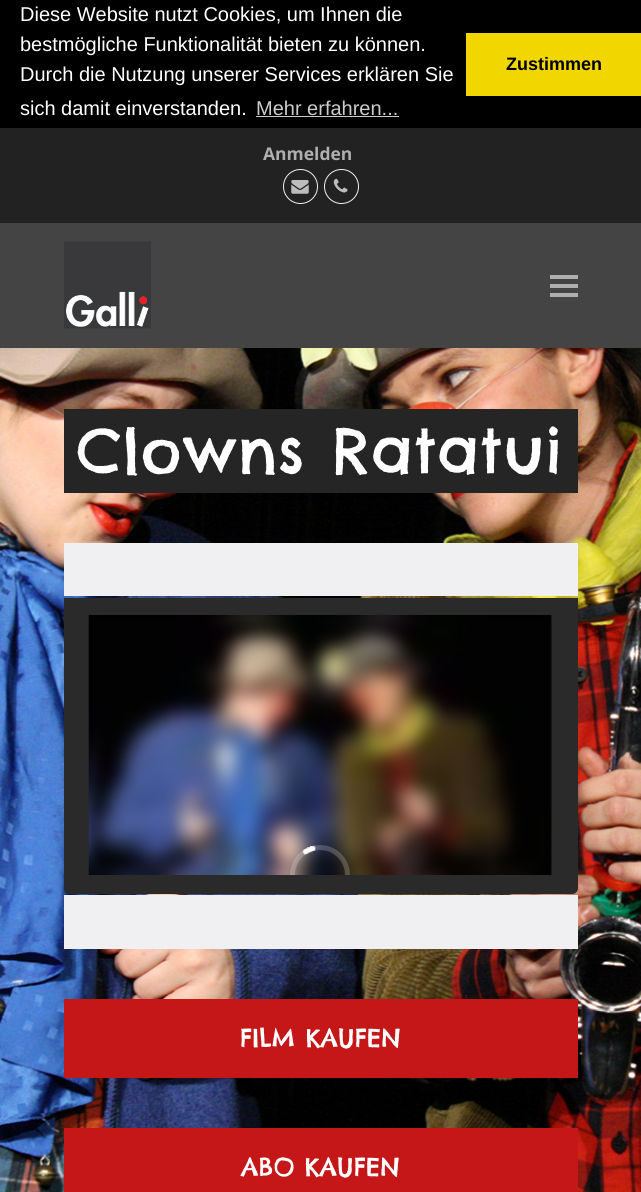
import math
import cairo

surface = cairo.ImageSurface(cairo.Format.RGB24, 641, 1192)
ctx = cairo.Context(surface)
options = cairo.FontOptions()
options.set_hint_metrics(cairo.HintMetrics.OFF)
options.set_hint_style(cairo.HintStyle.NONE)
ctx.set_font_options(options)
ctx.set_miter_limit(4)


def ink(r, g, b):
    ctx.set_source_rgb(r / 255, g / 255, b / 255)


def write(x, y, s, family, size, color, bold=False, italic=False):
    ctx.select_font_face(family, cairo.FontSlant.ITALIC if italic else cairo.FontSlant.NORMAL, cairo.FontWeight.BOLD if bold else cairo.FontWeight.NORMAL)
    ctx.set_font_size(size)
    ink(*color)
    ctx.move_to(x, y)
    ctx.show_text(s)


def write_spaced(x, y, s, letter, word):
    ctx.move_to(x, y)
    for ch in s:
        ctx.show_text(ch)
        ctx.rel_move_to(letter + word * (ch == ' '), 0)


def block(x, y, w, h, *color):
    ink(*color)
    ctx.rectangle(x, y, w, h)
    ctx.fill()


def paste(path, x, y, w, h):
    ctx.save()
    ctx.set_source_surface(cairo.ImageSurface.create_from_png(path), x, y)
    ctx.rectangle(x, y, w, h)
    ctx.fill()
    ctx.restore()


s1 = dict(family="Liberation Sans", size=20, color=(255, 255, 255))
s2 = dict(family="Liberation Sans", size=20, color=(204, 204, 204))
s3 = dict(family="Liberation Sans", size=18, color=(0, 0, 0), bold=True)
s4 = dict(family="Open Sans", size=17.5, color=(175, 175, 175), bold=True)
s5 = dict(family="Chelsea Market", size=25, color=(255, 255, 255))

ink(255, 255, 255)
ctx.paint()
paste("pic1.png", 0, 348, 641, 844)
block(0, 0, 641, 128, 0, 0, 0)
write(20, 21, "Diese Website nutzt Cookies, um Ihnen die", **s1)
write(20, 51, "bestmögliche Funktionalität bieten zu können.", **s1)
write(20, 81, "Durch die Nutzung unserer Services erklären Sie", **s1)
write(20, 115, "sich damit einverstanden.", **s1)
write(256, 115, "Mehr erfahren...", **s2)
block(256, 116, 143, 1, 204, 204, 204)
block(466, 33, 175, 63, 241, 214, 0)
write(506, 70, "Zustimmen", **s3)
block(0, 128, 641, 95, 34, 34, 34)
write(263, 160, "Anmelden", **s4)
ctx.new_path()
ctx.arc(300.5, 186.5, 17, 0, 2 * math.pi)
ink(238, 238, 238)
ctx.set_line_width(1)
ctx.stroke()
paste("pic2.png", 291, 180, 18, 14)
ctx.arc(341.5, 186.5, 17, 0, 2 * math.pi)
ctx.stroke()
paste("pic3.png", 333, 178, 15, 15)
block(0, 223, 641, 125, 68, 68, 68)
paste("pic4.png", 64, 241, 87, 88)
block(550, 284, 28, 4, 175, 175, 175)
block(550, 275, 28, 4, 175, 175, 175)
block(550, 293, 28, 4, 175, 175, 175)
block(64, 409, 514, 84, 37, 37, 37)
ctx.select_font_face("Chelsea Market")
ctx.set_font_size(61.25)
ink(255, 255, 255)
write_spaced(77, 473, "Clowns Ratatui", 1.25, 0)
block(64, 543, 514, 53, 240, 240, 242)
ink(42, 42, 42)
ctx.new_path()
ctx.move_to(64, 598)
ctx.line_to(578, 598)
ctx.line_to(578, 888)
ctx.curve_to(578, 891.5, 575.5, 894, 572, 894)
ctx.line_to(70, 894)
ctx.curve_to(66.5, 894, 64, 891.5, 64, 888)
ctx.close_path()
ctx.fill()
paste("pic5.png", 88, 615, 464, 260)
block(64, 895, 514, 54, 240, 240, 242)
block(64, 999, 514, 79, 197, 23, 24)
write(240, 1047, "FILM KAUFEN", **s5)
block(64, 1128, 514, 64, 197, 23, 24)
write(241, 1176, "ABO KAUFEN", **s5)
surface.write_to_png("screenshot.png")
